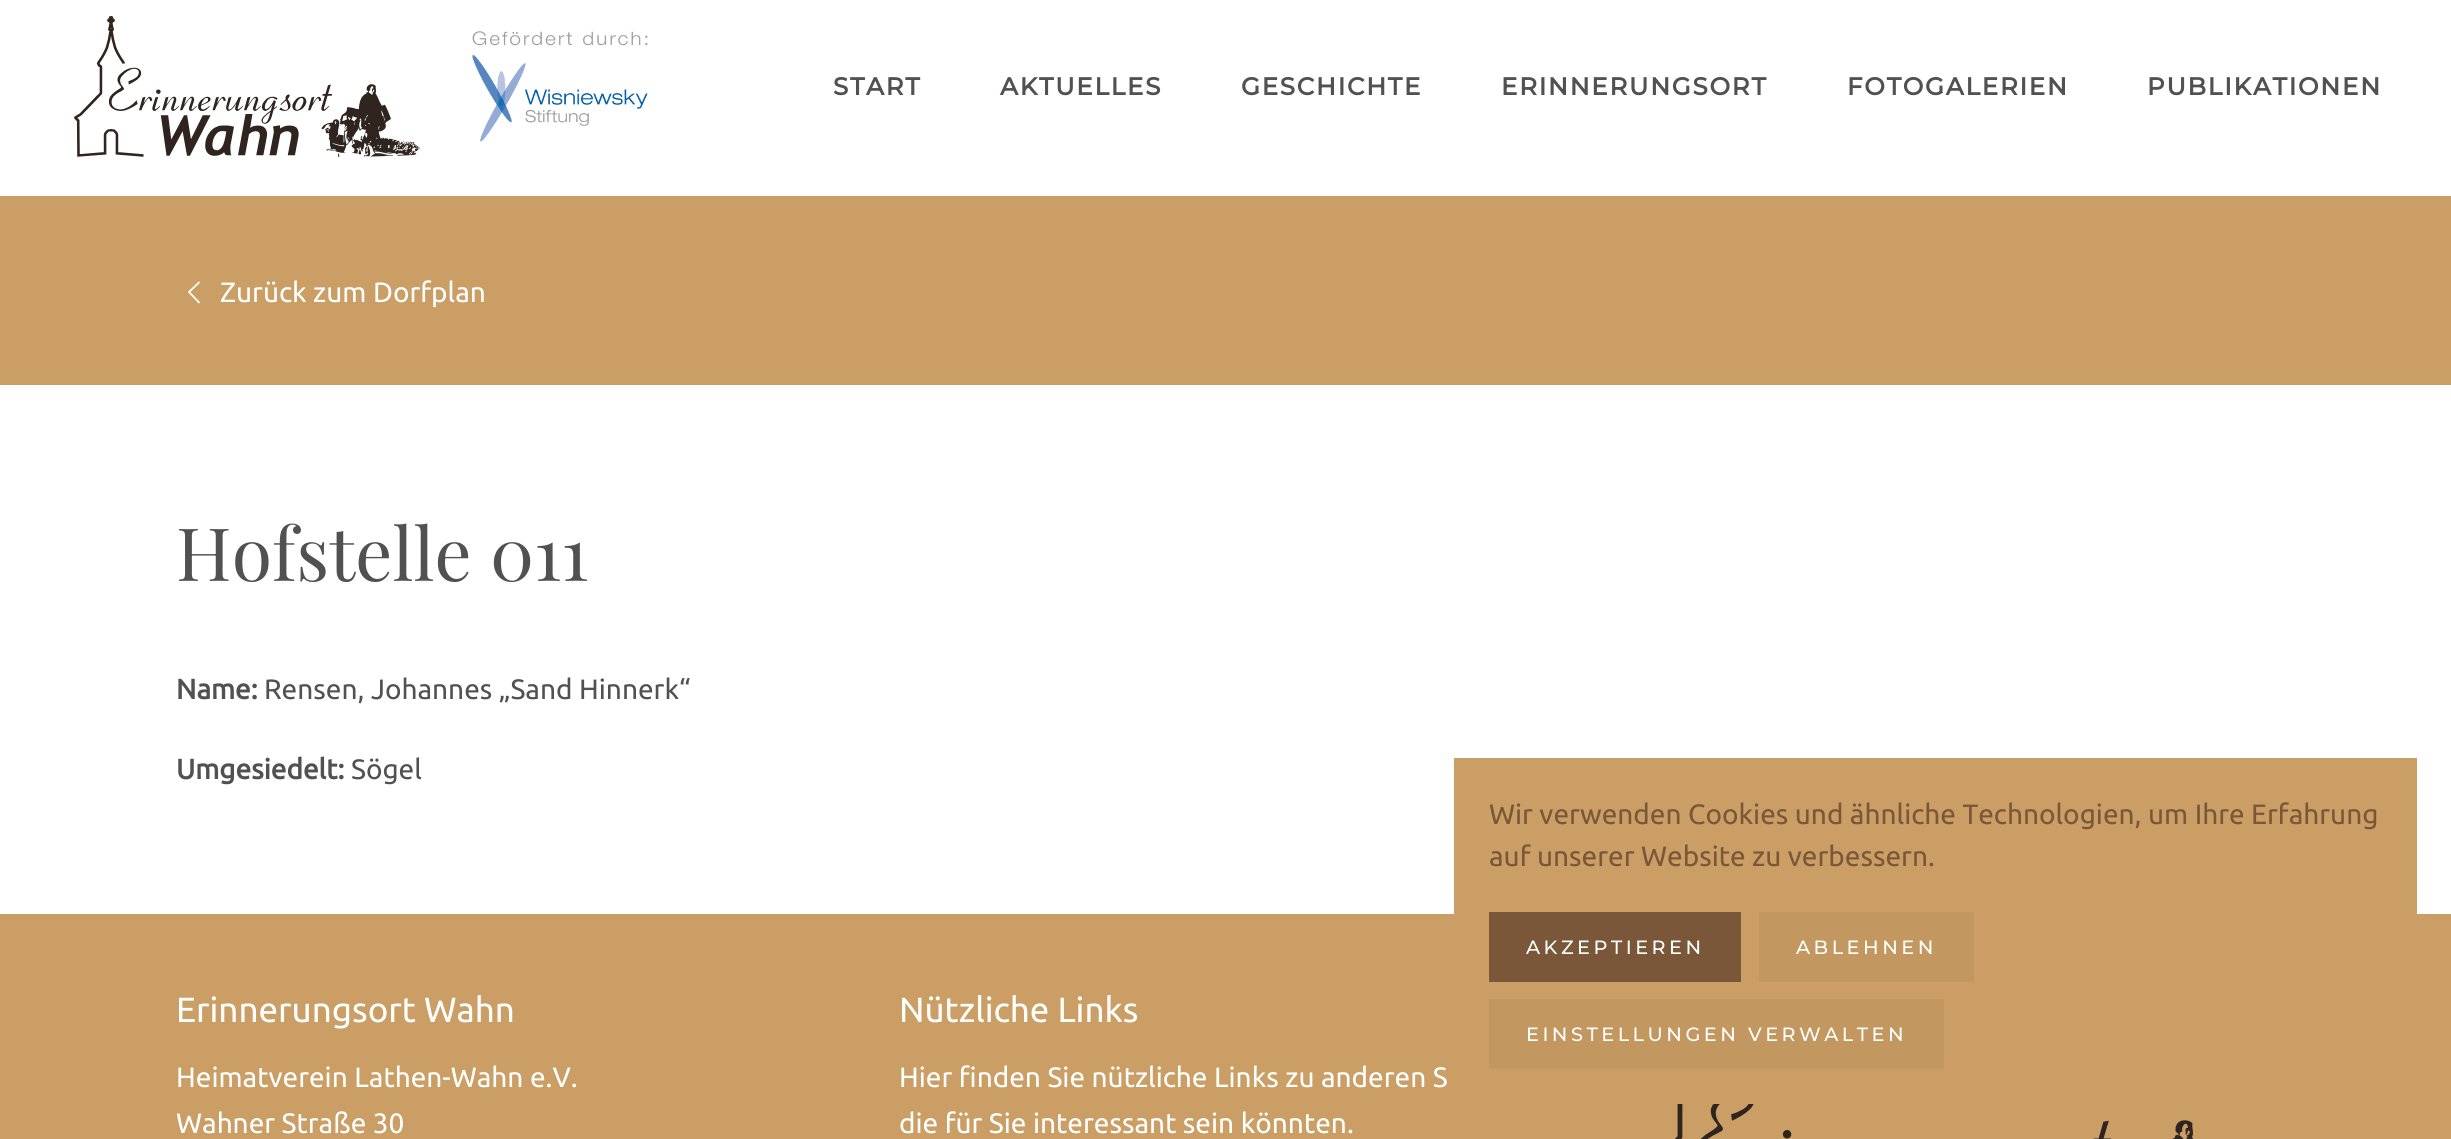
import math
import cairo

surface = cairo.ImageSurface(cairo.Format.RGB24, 2451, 1139)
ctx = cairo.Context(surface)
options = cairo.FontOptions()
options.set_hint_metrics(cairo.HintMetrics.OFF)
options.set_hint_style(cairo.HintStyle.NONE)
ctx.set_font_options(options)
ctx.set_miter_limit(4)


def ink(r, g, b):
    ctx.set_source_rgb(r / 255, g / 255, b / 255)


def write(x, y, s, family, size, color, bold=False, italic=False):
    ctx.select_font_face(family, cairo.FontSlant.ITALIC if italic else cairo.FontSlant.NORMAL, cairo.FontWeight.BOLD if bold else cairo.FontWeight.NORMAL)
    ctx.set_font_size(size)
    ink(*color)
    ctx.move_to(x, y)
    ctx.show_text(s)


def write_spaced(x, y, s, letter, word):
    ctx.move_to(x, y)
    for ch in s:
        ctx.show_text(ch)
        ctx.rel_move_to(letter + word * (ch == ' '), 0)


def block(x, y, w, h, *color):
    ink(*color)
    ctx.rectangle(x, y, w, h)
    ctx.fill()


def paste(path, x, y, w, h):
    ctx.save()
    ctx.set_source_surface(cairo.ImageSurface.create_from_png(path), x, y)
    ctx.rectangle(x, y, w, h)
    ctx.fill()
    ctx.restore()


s1 = dict(family="Ubuntu", size=28, color=(255, 255, 255))
s2 = dict(family="Playfair Display", size=73.5, color=(81, 81, 81))
s3 = dict(family="Ubuntu", size=28, color=(81, 81, 81), bold=True)
s4 = dict(family="Ubuntu", size=28, color=(81, 81, 81))
s5 = dict(family="Ubuntu", size=35, color=(255, 255, 255))
s6 = dict(family="Ubuntu", size=28, color=(123, 87, 57))

ink(255, 255, 255)
ctx.paint()
paste("pic1.png", 74, 16, 346, 141)
paste("pic2.png", 472, 31, 176, 111)
ctx.select_font_face("Montserrat", cairo.FontSlant.NORMAL, cairo.FontWeight.BOLD)
ctx.set_font_size(24.5)
ink(81, 81, 81)
write_spaced(833, 95, "START", 1.75, 0)
write_spaced(1000, 95, "AKTUELLES", 1.75, 0)
write_spaced(1241, 95, "GESCHICHTE", 1.75, 0)
write_spaced(1501, 95, "ERINNERUNGSORT", 1.75, 0)
write_spaced(1847, 95, "FOTOGALERIEN", 1.75, 0)
write_spaced(2147, 95, "PUBLIKATIONEN", 1.75, 0)
block(0, 196, 2451, 189, 202, 158, 100)
ctx.new_path()
ctx.move_to(199.5, 303)
ctx.line_to(189, 292)
ctx.line_to(199.5, 282)
ink(255, 255, 255)
ctx.set_line_width(1.8)
ctx.stroke()
write(220, 302, "Zurück zum Dorfplan", **s1)
write(176, 581, "Hofstelle 011", **s2)
write(176, 699, "Name:", **s3)
write(264, 699, "Rensen, Johannes „Sand Hinnerk“", **s4)
write(176, 779, "Umgesiedelt:", **s3)
write(351, 779, "Sögel", **s4)
block(0, 914, 2451, 225, 202, 158, 100)
write(176, 1022, "Erinnerungsort Wahn", **s5)
write(176, 1087, "Heimatverein Lathen-Wahn e.V.", **s1)
write(176, 1133, "Wahner Straße 30", **s1)
write(899, 1022, "Nützliche Links", **s5)
write(899, 1087, "Hier finden Sie nützliche Links zu anderen S", **s1)
write(899, 1133, "die für Sie interessant sein könnten.", **s1)
paste("pic3.png", 1675, 1104, 519, 35)
block(1454, 758, 963, 156, 202, 158, 100)
write(1489, 824, "Wir verwenden Cookies und ähnliche Technologien, um Ihre Erfahrung", **s6)
write(1489, 866, "auf unserer Website zu verbessern.", **s6)
block(1489, 912, 252, 70, 123, 87, 57)
ctx.select_font_face("Montserrat Thin")
ctx.set_font_size(19.25)
ink(255, 255, 255)
write_spaced(1526, 954, "AKZEPTIEREN", 3.5, 0)
block(1759, 912, 215, 70, 194, 151, 96)
ink(255, 255, 255)
write_spaced(1796, 954, "ABLEHNEN", 3.5, 0)
block(1489, 999, 455, 70, 194, 151, 96)
ink(255, 255, 255)
write_spaced(1526, 1041, "EINSTELLUNGEN VERWALTEN", 3.5, 0)
surface.write_to_png("screenshot.png")
